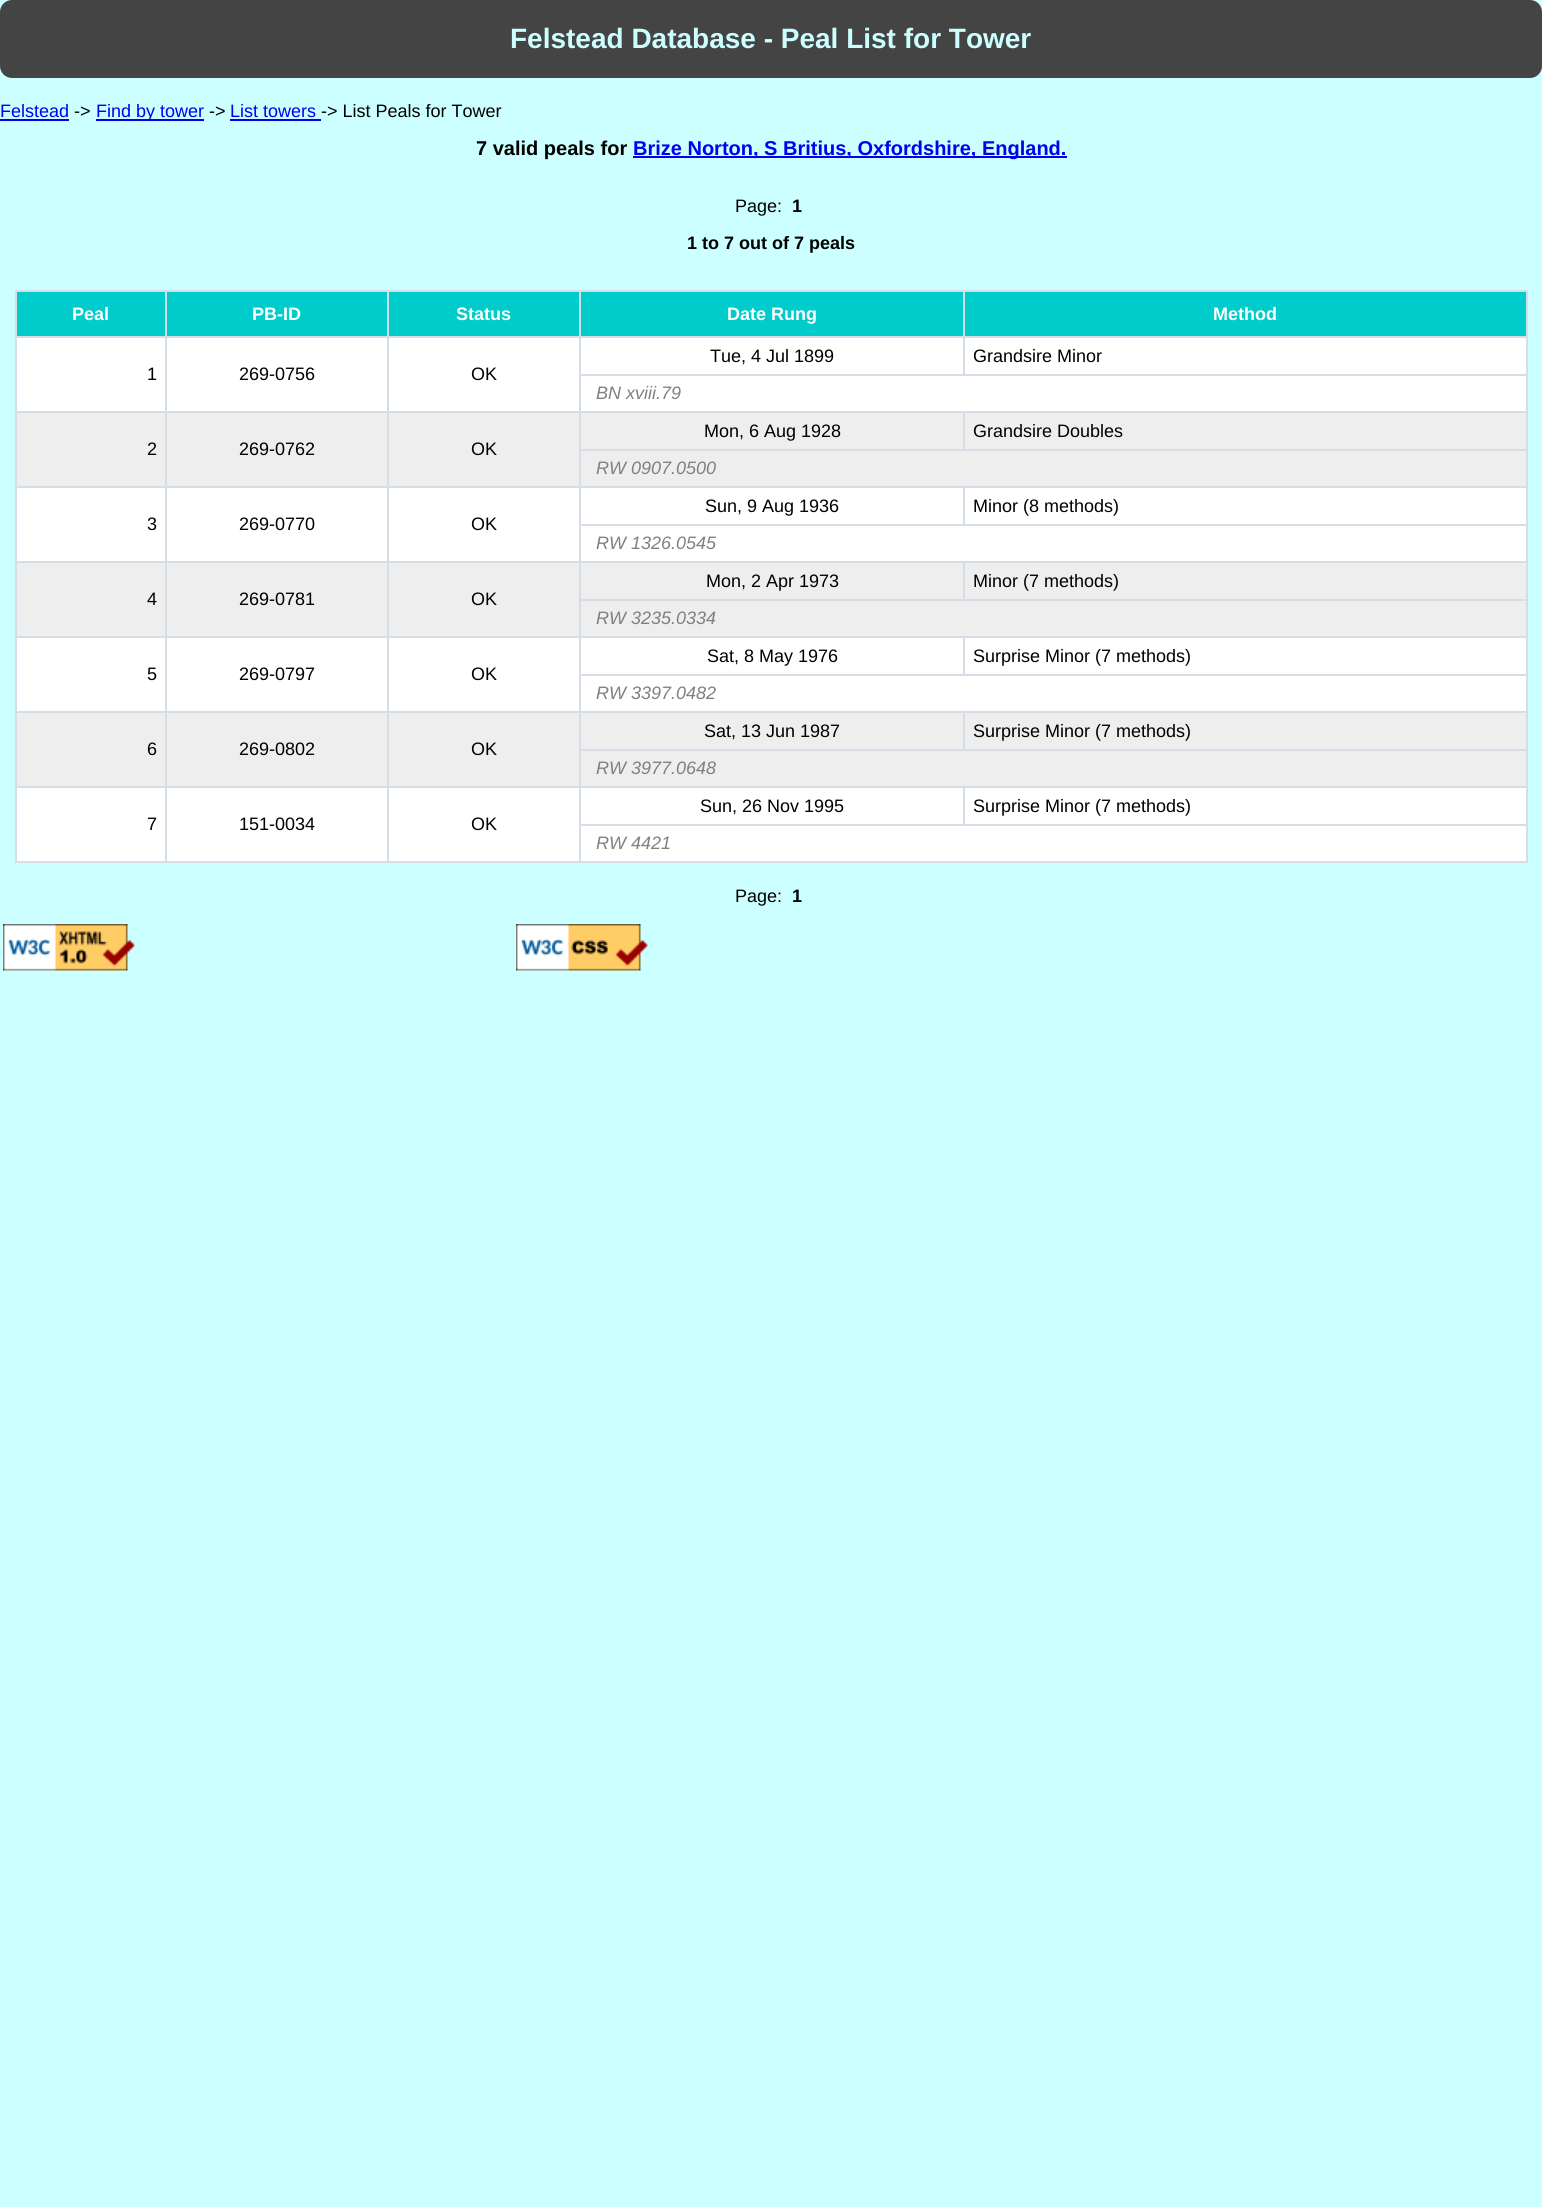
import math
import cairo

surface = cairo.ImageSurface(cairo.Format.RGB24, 1542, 2207)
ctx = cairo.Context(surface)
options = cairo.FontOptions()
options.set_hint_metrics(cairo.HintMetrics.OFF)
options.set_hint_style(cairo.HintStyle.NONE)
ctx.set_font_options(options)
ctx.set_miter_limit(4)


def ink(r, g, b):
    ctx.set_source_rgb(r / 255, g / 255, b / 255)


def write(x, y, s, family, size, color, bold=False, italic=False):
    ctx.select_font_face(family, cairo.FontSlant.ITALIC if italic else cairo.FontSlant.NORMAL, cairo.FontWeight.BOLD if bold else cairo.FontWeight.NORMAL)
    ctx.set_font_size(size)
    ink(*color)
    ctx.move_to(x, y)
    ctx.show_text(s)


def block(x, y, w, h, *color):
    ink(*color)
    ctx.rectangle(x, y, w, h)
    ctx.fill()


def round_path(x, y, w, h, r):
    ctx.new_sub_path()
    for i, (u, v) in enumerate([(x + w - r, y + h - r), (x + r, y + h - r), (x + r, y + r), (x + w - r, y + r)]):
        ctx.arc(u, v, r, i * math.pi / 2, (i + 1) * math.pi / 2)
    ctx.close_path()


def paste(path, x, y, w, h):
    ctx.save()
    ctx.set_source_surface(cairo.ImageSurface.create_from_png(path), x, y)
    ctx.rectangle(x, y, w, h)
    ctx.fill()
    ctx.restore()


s1 = dict(family="Liberation Sans", size=28, color=(204, 255, 255), bold=True)
s2 = dict(family="Liberation Sans", size=18, color=(0, 0, 238))
s3 = dict(family="Liberation Sans", size=18, color=(0, 0, 0))
s4 = dict(family="Liberation Sans", size=20, color=(0, 0, 0), bold=True)
s5 = dict(family="Liberation Sans", size=20, color=(0, 0, 238), bold=True)
s6 = dict(family="Liberation Sans", size=18, color=(0, 0, 0), bold=True)
s7 = dict(family="Liberation Sans", size=18, color=(255, 255, 255), bold=True)
s8 = dict(family="Liberation Sans", size=18, color=(128, 128, 128), italic=True)

ink(204, 255, 255)
ctx.paint()
ink(68, 68, 68)
round_path(0, 0, 1542, 78, 12)
ctx.fill()
write(510, 48, "Felstead Database - Peal List for Tower", **s1)
write(0, 117, "Felstead", **s2)
block(0, 119, 69, 2, 0, 0, 238)
write(74, 117, "->", **s3)
block(96, 119, 108, 2, 0, 0, 238)
write(96, 117, "Find by tower", **s2)
write(209, 117, "->", **s3)
write(230, 117, "List towers", **s2)
block(230, 119, 91, 2, 0, 0, 238)
write(321, 117, "-> List Peals for Tower", **s3)
write(476, 155, "7 valid peals for", **s4)
block(633, 156, 434, 2, 0, 0, 238)
write(633, 155, "Brize Norton, S Britius, Oxfordshire, England.", **s5)
write(735, 212, "Page:", **s3)
write(792, 212, "1", **s6)
write(687, 249, "1 to 7 out of 7 peals", **s6)
block(15, 290, 1512, 2, 214, 221, 230)
block(1526, 290, 2, 573, 214, 221, 230)
block(15, 861, 1512, 2, 214, 221, 230)
block(15, 290, 2, 573, 214, 221, 230)
block(17, 292, 148, 44, 0, 204, 204)
write(72, 320, "Peal", **s7)
block(167, 292, 220, 44, 0, 204, 204)
block(963, 336, 564, 2, 214, 221, 230)
block(17, 338, 1509, 73, 255, 255, 255)
block(579, 374, 948, 2, 214, 221, 230)
block(963, 336, 2, 39, 214, 221, 230)
block(579, 336, 386, 2, 214, 221, 230)
block(963, 411, 564, 2, 214, 221, 230)
block(17, 413, 1509, 73, 238, 238, 238)
block(579, 449, 948, 2, 214, 221, 230)
block(963, 411, 2, 39, 214, 221, 230)
block(579, 411, 386, 2, 214, 221, 230)
block(963, 486, 564, 2, 214, 221, 230)
block(17, 488, 1509, 73, 255, 255, 255)
block(579, 524, 948, 2, 214, 221, 230)
block(963, 486, 2, 39, 214, 221, 230)
block(579, 486, 386, 2, 214, 221, 230)
block(963, 561, 564, 2, 214, 221, 230)
block(17, 563, 1509, 73, 238, 238, 238)
block(579, 599, 948, 2, 214, 221, 230)
block(963, 561, 2, 39, 214, 221, 230)
block(579, 561, 386, 2, 214, 221, 230)
block(963, 636, 564, 2, 214, 221, 230)
block(17, 638, 1509, 73, 255, 255, 255)
block(579, 674, 948, 2, 214, 221, 230)
block(963, 636, 2, 39, 214, 221, 230)
block(579, 636, 386, 2, 214, 221, 230)
block(963, 711, 564, 2, 214, 221, 230)
block(17, 713, 1509, 73, 238, 238, 238)
block(579, 749, 948, 2, 214, 221, 230)
block(963, 711, 2, 39, 214, 221, 230)
block(579, 711, 386, 2, 214, 221, 230)
block(963, 786, 564, 2, 214, 221, 230)
block(17, 788, 1509, 73, 255, 255, 255)
block(579, 824, 948, 2, 214, 221, 230)
block(963, 786, 2, 39, 214, 221, 230)
block(579, 786, 386, 2, 214, 221, 230)
block(579, 824, 2, 39, 214, 221, 230)
block(579, 786, 2, 39, 214, 221, 230)
block(387, 786, 194, 2, 214, 221, 230)
block(579, 749, 2, 39, 214, 221, 230)
block(579, 711, 2, 39, 214, 221, 230)
block(387, 711, 194, 2, 214, 221, 230)
block(579, 674, 2, 39, 214, 221, 230)
block(579, 636, 2, 39, 214, 221, 230)
block(387, 636, 194, 2, 214, 221, 230)
block(579, 599, 2, 39, 214, 221, 230)
block(579, 561, 2, 39, 214, 221, 230)
block(387, 561, 194, 2, 214, 221, 230)
block(579, 524, 2, 39, 214, 221, 230)
block(579, 486, 2, 39, 214, 221, 230)
block(387, 486, 194, 2, 214, 221, 230)
block(579, 449, 2, 39, 214, 221, 230)
block(579, 411, 2, 39, 214, 221, 230)
block(387, 411, 194, 2, 214, 221, 230)
block(579, 374, 2, 39, 214, 221, 230)
block(579, 336, 2, 39, 214, 221, 230)
block(387, 336, 194, 2, 214, 221, 230)
block(387, 786, 2, 77, 214, 221, 230)
block(165, 786, 224, 2, 214, 221, 230)
block(387, 711, 2, 77, 214, 221, 230)
block(165, 711, 224, 2, 214, 221, 230)
block(387, 636, 2, 77, 214, 221, 230)
block(165, 636, 224, 2, 214, 221, 230)
block(387, 561, 2, 77, 214, 221, 230)
block(165, 561, 224, 2, 214, 221, 230)
block(387, 486, 2, 77, 214, 221, 230)
block(165, 486, 224, 2, 214, 221, 230)
block(387, 411, 2, 77, 214, 221, 230)
block(165, 411, 224, 2, 214, 221, 230)
block(387, 336, 2, 77, 214, 221, 230)
block(165, 336, 224, 2, 214, 221, 230)
block(165, 786, 2, 77, 214, 221, 230)
block(15, 786, 152, 2, 214, 221, 230)
block(165, 711, 2, 77, 214, 221, 230)
block(15, 711, 152, 2, 214, 221, 230)
block(165, 636, 2, 77, 214, 221, 230)
block(15, 636, 152, 2, 214, 221, 230)
block(165, 561, 2, 77, 214, 221, 230)
block(15, 561, 152, 2, 214, 221, 230)
block(165, 486, 2, 77, 214, 221, 230)
block(15, 486, 152, 2, 214, 221, 230)
block(165, 411, 2, 77, 214, 221, 230)
block(15, 411, 152, 2, 214, 221, 230)
block(165, 336, 2, 77, 214, 221, 230)
block(15, 336, 152, 2, 214, 221, 230)
block(165, 290, 2, 48, 214, 221, 230)
write(252, 320, "PB-ID", **s7)
block(389, 292, 190, 44, 0, 204, 204)
block(387, 290, 2, 48, 214, 221, 230)
write(456, 320, "Status", **s7)
block(581, 292, 382, 44, 0, 204, 204)
block(579, 290, 2, 48, 214, 221, 230)
write(727, 320, "Date Rung", **s7)
block(965, 292, 561, 44, 0, 204, 204)
block(963, 290, 2, 48, 214, 221, 230)
write(1213, 320, "Method", **s7)
write(710, 362, "Tue, 4 Jul 1899", **s3)
write(973, 362, "Grandsire Minor", **s3)
write(147, 380, "1", **s3)
write(239, 380, "269-0756", **s3)
write(471, 380, "OK", **s3)
write(596, 399, "BN xviii.79", **s8)
write(704, 437, "Mon, 6 Aug 1928", **s3)
write(973, 437, "Grandsire Doubles", **s3)
write(147, 455, "2", **s3)
write(239, 455, "269-0762", **s3)
write(471, 455, "OK", **s3)
write(596, 474, "RW 0907.0500", **s8)
write(705, 512, "Sun, 9 Aug 1936", **s3)
write(973, 512, "Minor (8 methods)", **s3)
write(147, 530, "3", **s3)
write(239, 530, "269-0770", **s3)
write(471, 530, "OK", **s3)
write(596, 549, "RW 1326.0545", **s8)
write(706, 587, "Mon, 2 Apr 1973", **s3)
write(973, 587, "Minor (7 methods)", **s3)
write(147, 605, "4", **s3)
write(239, 605, "269-0781", **s3)
write(471, 605, "OK", **s3)
write(596, 624, "RW 3235.0334", **s8)
write(707, 662, "Sat, 8 May 1976", **s3)
write(973, 662, "Surprise Minor (7 methods)", **s3)
write(147, 680, "5", **s3)
write(239, 680, "269-0797", **s3)
write(471, 680, "OK", **s3)
write(596, 699, "RW 3397.0482", **s8)
write(704, 737, "Sat, 13 Jun 1987", **s3)
write(973, 737, "Surprise Minor (7 methods)", **s3)
write(147, 755, "6", **s3)
write(239, 755, "269-0802", **s3)
write(471, 755, "OK", **s3)
write(596, 774, "RW 3977.0648", **s8)
write(700, 812, "Sun, 26 Nov 1995", **s3)
write(973, 812, "Surprise Minor (7 methods)", **s3)
write(147, 830, "7", **s3)
write(239, 830, "151-0034", **s3)
write(471, 830, "OK", **s3)
write(596, 849, "RW 4421", **s8)
write(735, 902, "Page:", **s3)
write(792, 902, "1", **s6)
paste("pic1.png", 3, 924, 132, 47)
paste("pic2.png", 516, 924, 132, 47)
surface.write_to_png("screenshot.png")
